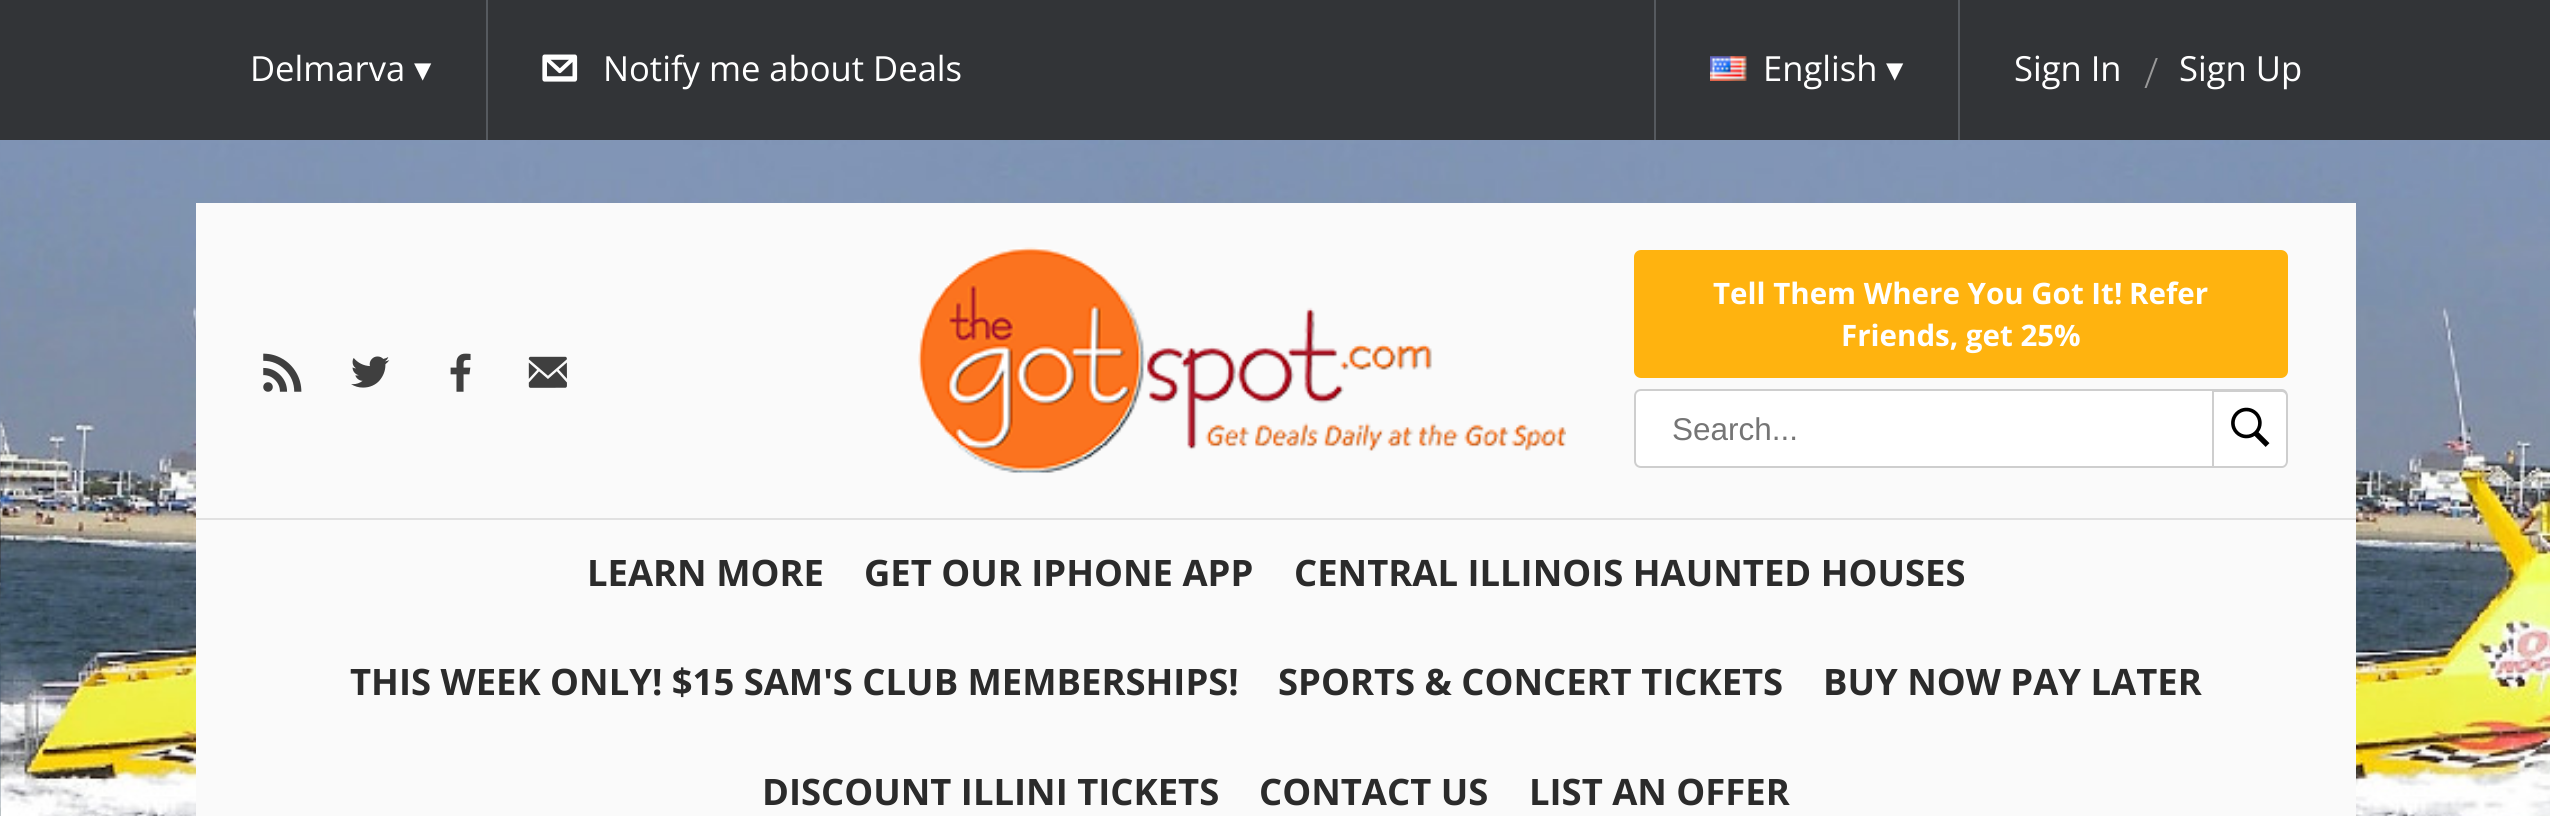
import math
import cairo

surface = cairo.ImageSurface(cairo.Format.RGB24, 2550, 816)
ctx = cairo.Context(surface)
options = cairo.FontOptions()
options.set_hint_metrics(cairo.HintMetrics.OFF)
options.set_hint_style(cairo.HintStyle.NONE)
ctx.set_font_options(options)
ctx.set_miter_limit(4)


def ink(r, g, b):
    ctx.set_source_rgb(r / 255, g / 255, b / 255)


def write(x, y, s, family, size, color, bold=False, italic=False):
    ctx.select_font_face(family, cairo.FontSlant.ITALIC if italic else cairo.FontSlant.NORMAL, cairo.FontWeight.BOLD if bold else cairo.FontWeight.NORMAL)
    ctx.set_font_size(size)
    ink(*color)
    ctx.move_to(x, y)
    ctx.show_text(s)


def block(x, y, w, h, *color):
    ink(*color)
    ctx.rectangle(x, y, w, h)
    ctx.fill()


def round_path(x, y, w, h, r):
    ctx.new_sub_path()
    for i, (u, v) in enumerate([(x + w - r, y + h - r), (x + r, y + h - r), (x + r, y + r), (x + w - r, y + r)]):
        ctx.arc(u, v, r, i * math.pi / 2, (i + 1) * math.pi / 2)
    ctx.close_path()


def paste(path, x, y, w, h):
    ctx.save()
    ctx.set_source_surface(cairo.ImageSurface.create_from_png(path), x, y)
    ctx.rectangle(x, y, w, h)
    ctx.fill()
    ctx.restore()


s1 = dict(family="Open Sans", size=34.6, color=(255, 255, 255))
s2 = dict(family="DejaVu Sans", size=34.6, color=(255, 255, 255))
s3 = dict(family="Open Sans Light", size=42, color=(153, 153, 153))
s4 = dict(family="Open Sans", size=29.5, color=(255, 255, 255), bold=True)
s5 = dict(family="Liberation Sans", size=31.5, color=(117, 117, 117))
s6 = dict(family="Open Sans", size=36.4, color=(43, 43, 43), bold=True)

ink(255, 255, 255)
ctx.paint()
paste("pic1.png", 0, 140, 2550, 676)
block(0, 0, 2550, 140, 50, 52, 55)
block(486, 0, 2, 140, 86, 90, 95)
write(250, 81, "Delmarva", **s1)
write(414, 81, "▾", **s2)
paste("pic2.png", 542, 54, 36, 28)
write(603, 81, "Notify me about Deals", **s1)
block(1654, 0, 2, 140, 86, 90, 95)
paste("pic3.png", 1710, 56, 37, 25)
write(1763, 81, "English", **s1)
write(1886, 81, "▾", **s2)
block(1958, 0, 2, 140, 86, 90, 95)
write(2014, 81, "Sign In", **s1)
write(2144, 88, "/", **s3)
write(2179, 81, "Sign Up", **s1)
block(196, 203, 2160, 315, 250, 250, 250)
paste("pic4.png", 263, 353, 39, 39)
paste("pic5.png", 351, 356, 39, 32)
paste("pic6.png", 450, 353, 21, 39)
paste("pic7.png", 528, 356, 39, 32)
paste("pic8.png", 918, 247, 648, 226)
ink(255, 179, 15)
round_path(1634, 250, 654, 128, 7)
ctx.fill()
write(1713, 304, "Tell Them Where You Got It!", **s4)
write(2129, 304, "Refer", **s4)
write(1841, 346, "Friends, get 25%", **s4)
ctx.new_path()
ctx.move_to(1641, 390)
ctx.line_to(2213, 390)
ctx.line_to(2213, 467)
ctx.line_to(1641, 467)
ctx.curve_to(1637.5, 467, 1635, 464.5, 1635, 461)
ctx.line_to(1635, 396)
ctx.curve_to(1635, 392.5, 1637.5, 390, 1641, 390)
ctx.close_path()
ctx.fill_preserve()
ink(206, 206, 206)
ctx.stroke()
write(1672, 440, "Search...", **s5)
ink(255, 255, 255)
ctx.new_path()
ctx.move_to(2214, 389)
ctx.line_to(2281, 389)
ctx.curve_to(2285, 389, 2288, 392, 2288, 396)
ctx.line_to(2288, 461)
ctx.curve_to(2288, 465, 2285, 468, 2281, 468)
ctx.line_to(2214, 468)
ctx.close_path()
ctx.fill()
ink(206, 206, 206)
ctx.set_fill_rule(cairo.FillRule.EVEN_ODD)
ctx.new_path()
ctx.move_to(2214, 389)
ctx.line_to(2282, 389)
ctx.curve_to(2285, 389, 2288, 392, 2288, 396)
ctx.line_to(2288, 461)
ctx.curve_to(2288, 465, 2285, 468, 2282, 468)
ctx.line_to(2214, 468)
ctx.close_path()
ctx.move_to(2214, 392)
ctx.line_to(2282, 392)
ctx.curve_to(2284, 392, 2286, 394, 2286, 396)
ctx.line_to(2286, 461)
ctx.curve_to(2286, 464, 2284, 466, 2282, 466)
ctx.line_to(2214, 466)
ctx.close_path()
ctx.fill()
paste("pic9.png", 2231, 407, 39, 40)
block(196, 520, 2160, 296, 250, 250, 250)
block(196, 518, 2160, 2, 225, 225, 225)
write(587, 586, "LEARN MORE", **s6)
write(864, 586, "GET OUR IPHONE APP", **s6)
write(1294, 586, "CENTRAL ILLINOIS HAUNTED HOUSES", **s6)
write(350, 695, "THIS WEEK ONLY! $15 SAM'S CLUB MEMBERSHIPS!", **s6)
write(1278, 695, "SPORTS & CONCERT TICKETS", **s6)
write(1823, 695, "BUY NOW PAY LATER", **s6)
write(762, 805, "DISCOUNT ILLINI TICKETS", **s6)
write(1259, 805, "CONTACT US", **s6)
write(1529, 805, "LIST AN OFFER", **s6)
surface.write_to_png("screenshot.png")
